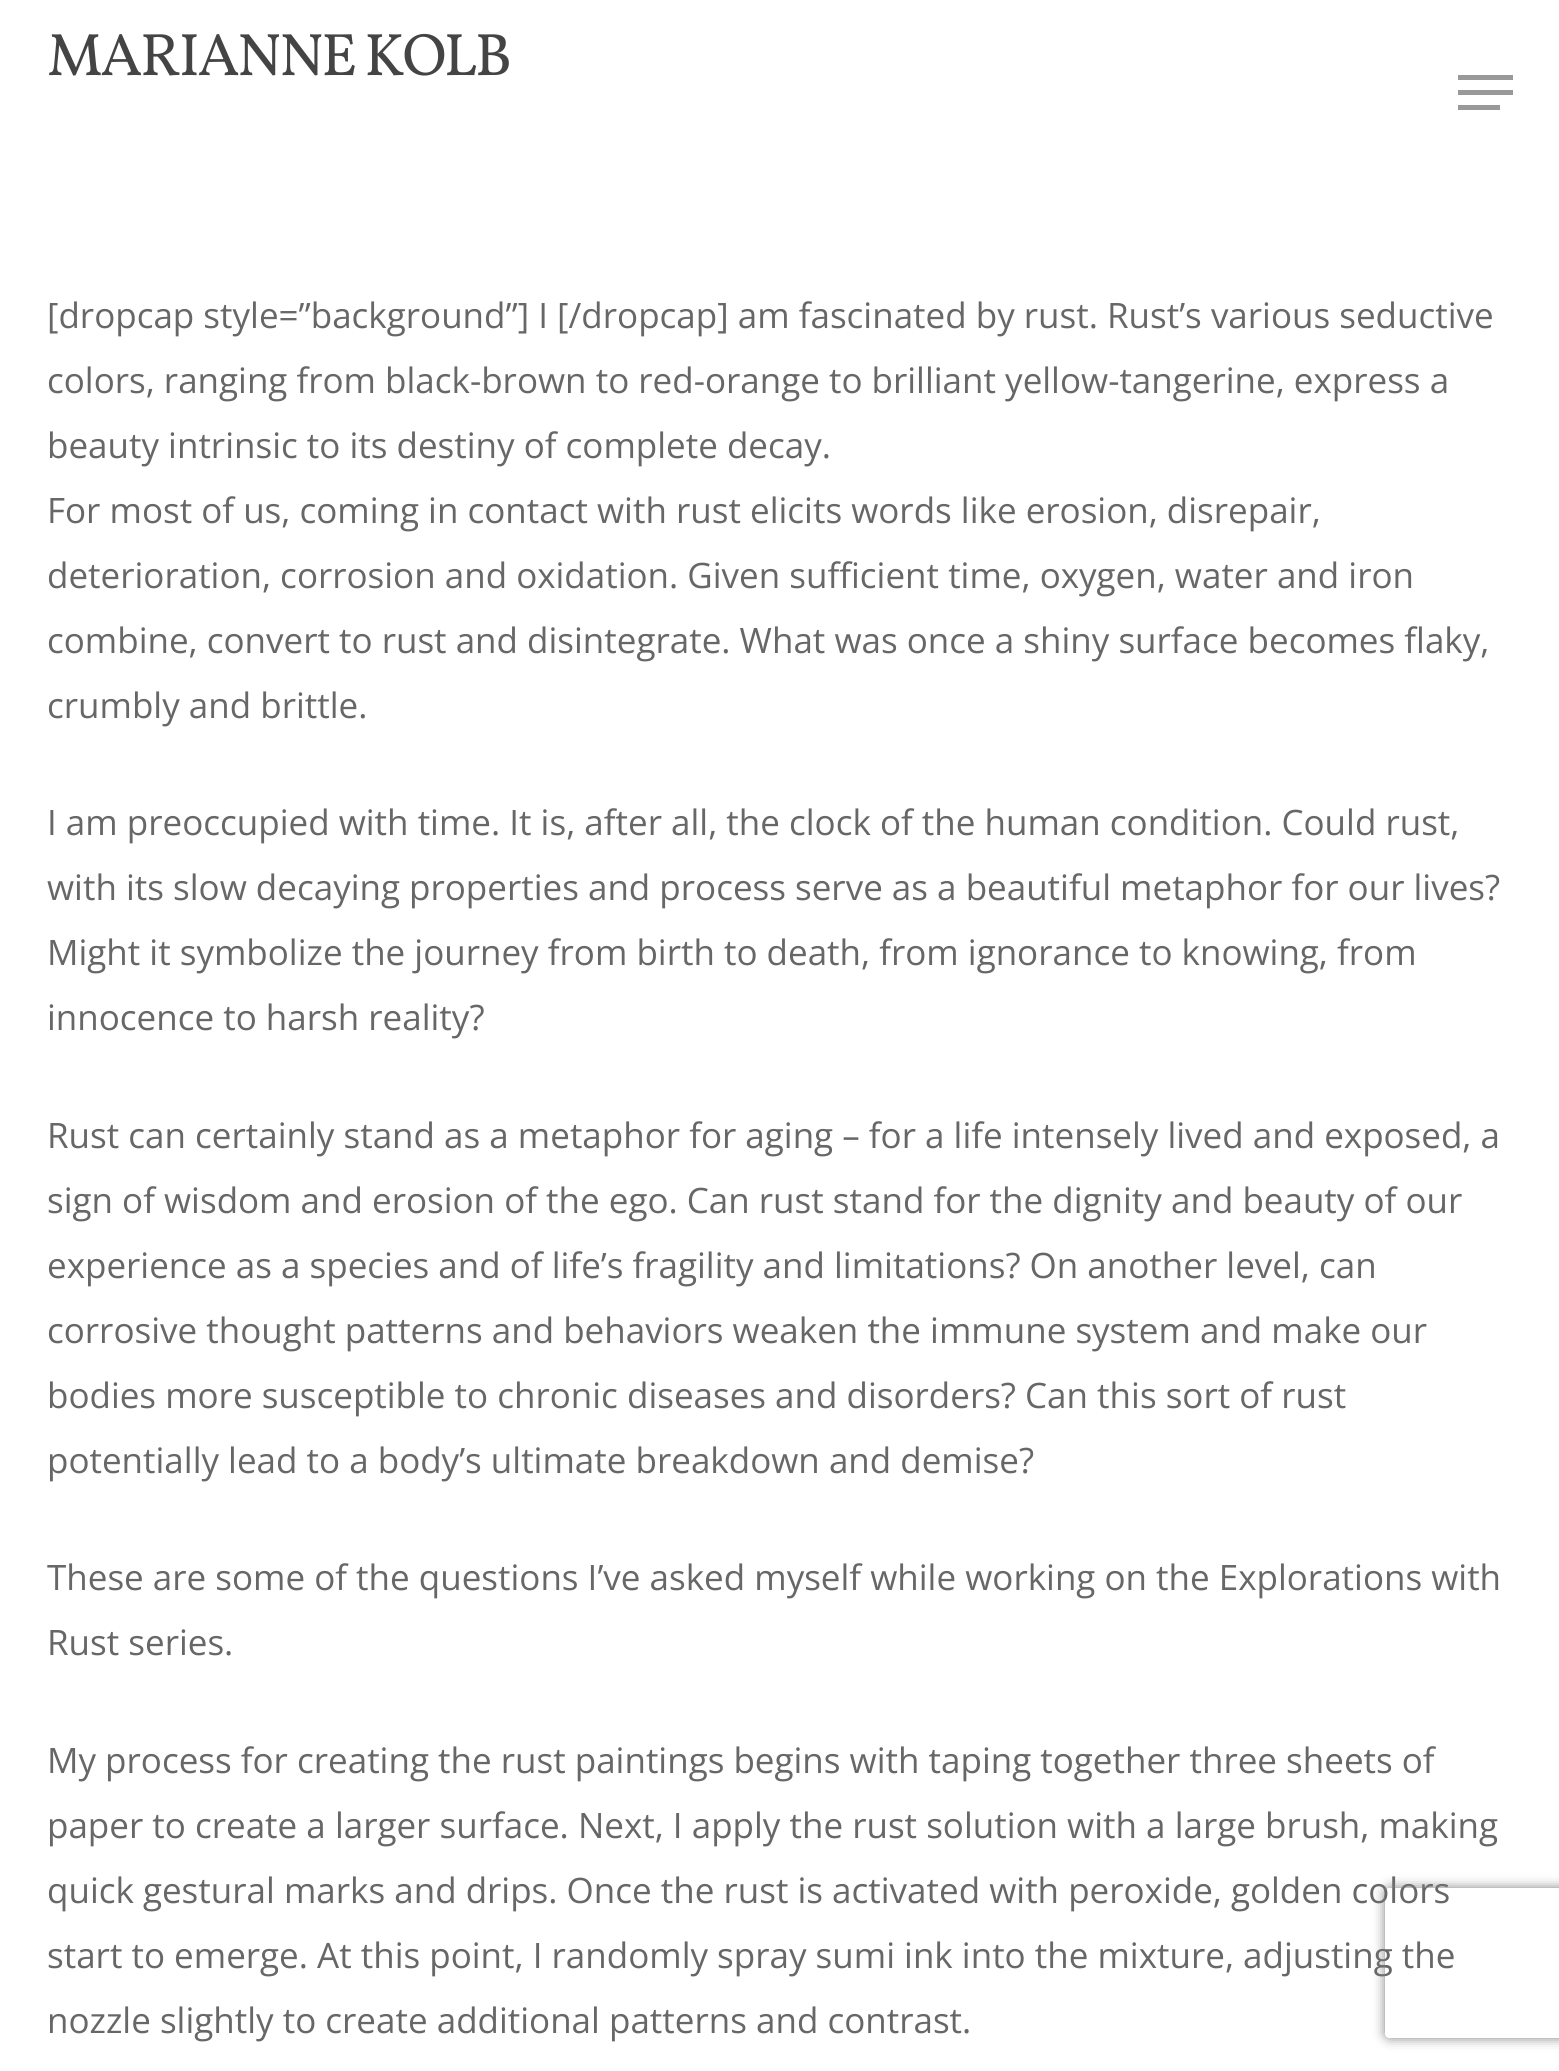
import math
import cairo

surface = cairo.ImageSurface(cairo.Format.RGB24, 1559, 2071)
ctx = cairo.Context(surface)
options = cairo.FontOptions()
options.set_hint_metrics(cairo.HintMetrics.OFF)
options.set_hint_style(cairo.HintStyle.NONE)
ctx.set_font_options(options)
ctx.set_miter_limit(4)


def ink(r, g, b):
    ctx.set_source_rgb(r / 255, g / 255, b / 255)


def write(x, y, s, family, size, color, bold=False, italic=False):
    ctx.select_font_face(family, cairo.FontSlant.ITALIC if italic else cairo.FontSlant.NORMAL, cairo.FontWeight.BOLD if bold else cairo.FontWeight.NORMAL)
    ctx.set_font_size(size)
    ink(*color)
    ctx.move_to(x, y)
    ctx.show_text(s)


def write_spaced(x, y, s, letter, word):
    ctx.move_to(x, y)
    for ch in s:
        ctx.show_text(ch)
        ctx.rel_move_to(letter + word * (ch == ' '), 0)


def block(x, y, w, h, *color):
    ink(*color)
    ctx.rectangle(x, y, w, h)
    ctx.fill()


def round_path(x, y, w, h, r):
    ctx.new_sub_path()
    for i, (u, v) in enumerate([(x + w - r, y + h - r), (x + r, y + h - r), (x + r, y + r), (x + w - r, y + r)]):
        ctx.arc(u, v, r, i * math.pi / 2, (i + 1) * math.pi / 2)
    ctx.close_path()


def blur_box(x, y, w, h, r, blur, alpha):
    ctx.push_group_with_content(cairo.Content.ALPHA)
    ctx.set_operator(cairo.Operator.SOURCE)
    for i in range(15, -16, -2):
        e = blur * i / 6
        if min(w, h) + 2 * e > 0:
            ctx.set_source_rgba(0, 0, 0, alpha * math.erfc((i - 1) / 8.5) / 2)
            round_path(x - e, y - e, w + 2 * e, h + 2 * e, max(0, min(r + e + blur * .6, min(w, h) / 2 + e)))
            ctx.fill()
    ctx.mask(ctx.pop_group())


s1 = dict(family="Open Sans", size=35, color=(103, 103, 103))

ink(255, 255, 255)
ctx.paint()
ctx.select_font_face("Vollkorn")
ctx.set_font_size(60)
ink(68, 68, 68)
write_spaced(47, 75, "MARIANNE KOLB", -2.5, 0)
block(1458, 75, 55, 5, 153, 153, 153)
block(1458, 105, 42, 5, 153, 153, 153)
block(1458, 90, 55, 5, 153, 153, 153)
write(47, 328, "[dropcap style=”background”] I [/dropcap] am fascinated by rust. Rust’s various seductive", **s1)
write(47, 393, "colors, ranging from black-brown to red-orange to brilliant yellow-tangerine, express a", **s1)
write(47, 458, "beauty intrinsic to its destiny of complete decay.", **s1)
write(47, 523, "For most of us, coming in contact with rust elicits words like erosion, disrepair,", **s1)
write(47, 588, "deterioration, corrosion and oxidation. Given sufficient time, oxygen, water and iron", **s1)
write(47, 653, "combine, convert to rust and disintegrate. What was once a shiny surface becomes flaky,", **s1)
write(47, 718, "crumbly and brittle.", **s1)
write(47, 835, "I am preoccupied with time. It is, after all, the clock of the human condition. Could rust,", **s1)
write(47, 900, "with its slow decaying properties and process serve as a beautiful metaphor for our lives?", **s1)
write(47, 965, "Might it symbolize the journey from birth to death, from ignorance to knowing, from", **s1)
write(47, 1030, "innocence to harsh reality?", **s1)
write(47, 1148, "Rust can certainly stand as a metaphor for aging – for a life intensely lived and exposed, a", **s1)
write(47, 1213, "sign of wisdom and erosion of the ego. Can rust stand for the dignity and beauty of our", **s1)
write(47, 1278, "experience as a species and of life’s fragility and limitations? On another level, can", **s1)
write(47, 1343, "corrosive thought patterns and behaviors weaken the immune system and make our", **s1)
write(47, 1408, "bodies more susceptible to chronic diseases and disorders? Can this sort of rust", **s1)
write(47, 1473, "potentially lead to a body’s ultimate breakdown and demise?", **s1)
write(47, 1590, "These are some of the questions I’ve asked myself while working on the Explorations with", **s1)
write(47, 1655, "Rust series.", **s1)
write(47, 1773, "My process for creating the rust paintings begins with taping together three sheets of", **s1)
write(47, 1838, "paper to create a larger surface. Next, I apply the rust solution with a large brush, making", **s1)
write(47, 1903, "quick gestural marks and drips. Once the rust is activated with peroxide, golden colors", **s1)
write(47, 1968, "start to emerge. At this point, I randomly spray sumi ink into the mixture, adjusting the", **s1)
write(47, 2033, "nozzle slightly to create additional patterns and contrast.", **s1)
ctx.save()
ctx.set_fill_rule(cairo.FillRule.EVEN_ODD)
ctx.new_path()
ctx.move_to(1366, 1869)
ctx.line_to(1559, 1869)
ctx.line_to(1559, 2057)
ctx.line_to(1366, 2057)
ctx.close_path()
ctx.move_to(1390, 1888)
ctx.line_to(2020, 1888)
ctx.curve_to(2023, 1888, 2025, 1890, 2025, 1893)
ctx.line_to(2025, 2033)
ctx.curve_to(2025, 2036, 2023, 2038, 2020, 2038)
ctx.line_to(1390, 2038)
ctx.curve_to(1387, 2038, 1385, 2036, 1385, 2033)
ctx.line_to(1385, 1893)
ctx.curve_to(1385, 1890, 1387, 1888, 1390, 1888)
ctx.close_path()
ctx.clip()
ink(128, 128, 128)
blur_box(1385, 1888, 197, 150, 5, 6, 1)
ctx.restore()
surface.write_to_png("screenshot.png")
